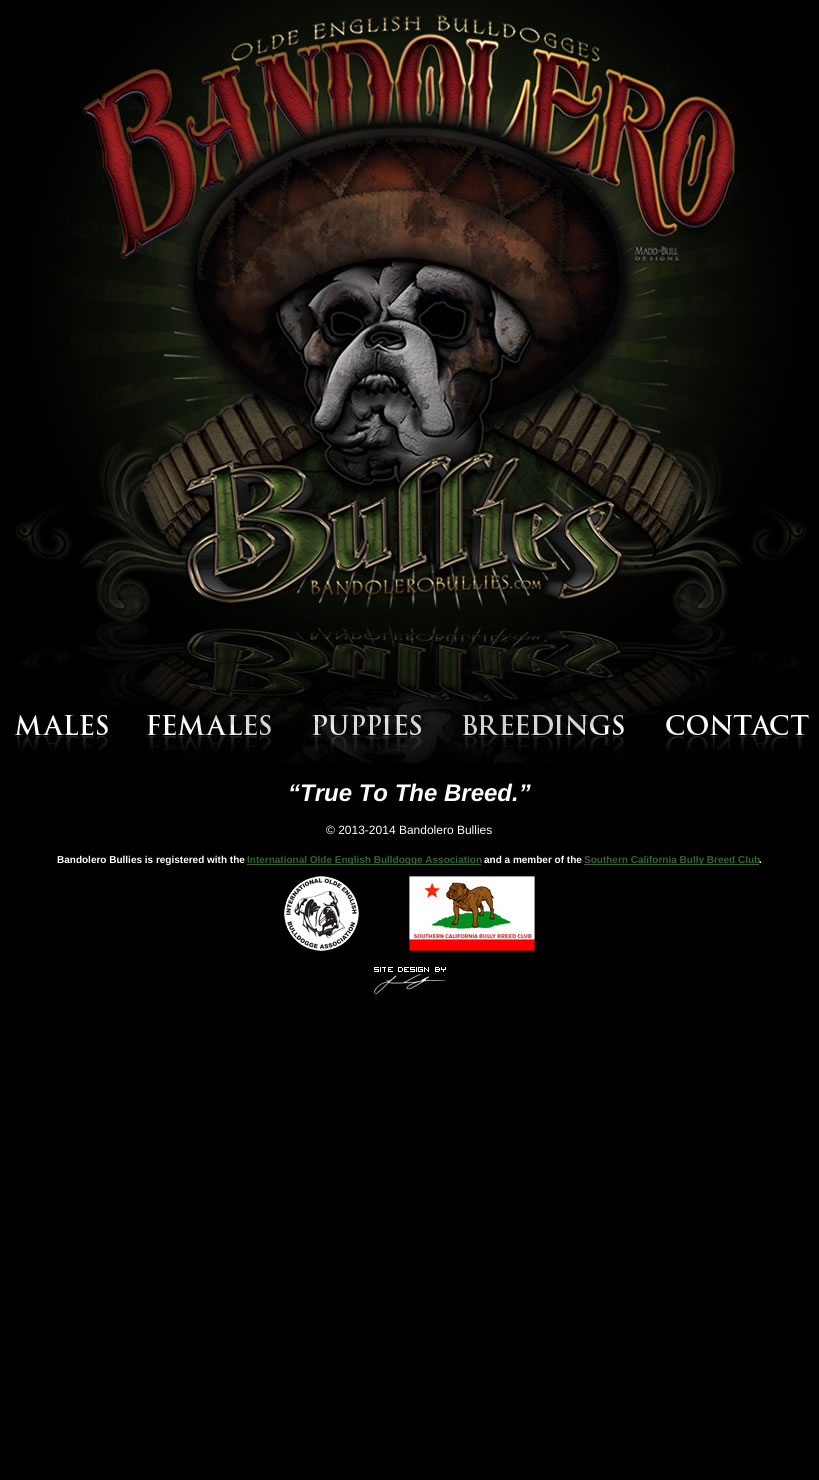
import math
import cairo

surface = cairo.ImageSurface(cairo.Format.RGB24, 819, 1480)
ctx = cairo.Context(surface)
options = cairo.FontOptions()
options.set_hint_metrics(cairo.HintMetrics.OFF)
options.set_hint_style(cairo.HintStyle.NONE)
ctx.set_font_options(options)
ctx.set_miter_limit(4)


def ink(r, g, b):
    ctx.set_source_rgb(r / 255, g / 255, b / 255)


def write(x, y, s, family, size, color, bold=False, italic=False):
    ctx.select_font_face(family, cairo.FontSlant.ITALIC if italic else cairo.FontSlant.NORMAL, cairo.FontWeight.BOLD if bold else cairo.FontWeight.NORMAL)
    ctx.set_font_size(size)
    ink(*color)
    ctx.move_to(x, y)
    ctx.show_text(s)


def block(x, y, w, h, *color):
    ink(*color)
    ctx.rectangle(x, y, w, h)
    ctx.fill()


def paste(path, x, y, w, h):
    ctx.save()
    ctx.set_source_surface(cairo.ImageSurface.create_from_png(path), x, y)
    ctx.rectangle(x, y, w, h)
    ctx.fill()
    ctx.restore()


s1 = dict(family="Liberation Sans", size=24, color=(255, 255, 255), bold=True, italic=True)
s2 = dict(family="Liberation Sans", size=12, color=(255, 255, 255))
s3 = dict(family="Liberation Sans", size=10, color=(255, 255, 255), bold=True)
s4 = dict(family="Liberation Sans", size=10, color=(51, 102, 51), bold=True)

ink(0, 0, 0)
ctx.paint()
paste("pic1.png", 16, 0, 791, 620)
paste("pic2.png", 19, 620, 783, 87)
paste("pic3.png", 8, 715, 104, 37)
paste("pic4.png", 145, 707, 146, 56)
paste("pic5.png", 291, 707, 151, 56)
paste("pic6.png", 442, 707, 204, 56)
paste("pic7.png", 646, 707, 168, 44)
write(288, 801, "“True To The Breed.”", **s1)
write(326, 834, "© 2013-2014 Bandolero Bullies", **s2)
write(57, 863, "Bandolero Bullies is registered with the", **s3)
block(247, 864, 234, 1, 51, 102, 51)
write(247, 863, "International Olde English Bulldogge Association", **s4)
write(484, 863, "and a member of the", **s3)
block(584, 864, 175, 1, 51, 102, 51)
write(584, 863, "Southern California Bully Breed Club", **s4)
write(759, 863, ".", **s3)
paste("pic8.png", 284, 876, 75, 75)
paste("pic9.png", 409, 876, 126, 75)
paste("pic10.png", 374, 967, 72, 27)
surface.write_to_png("screenshot.png")
